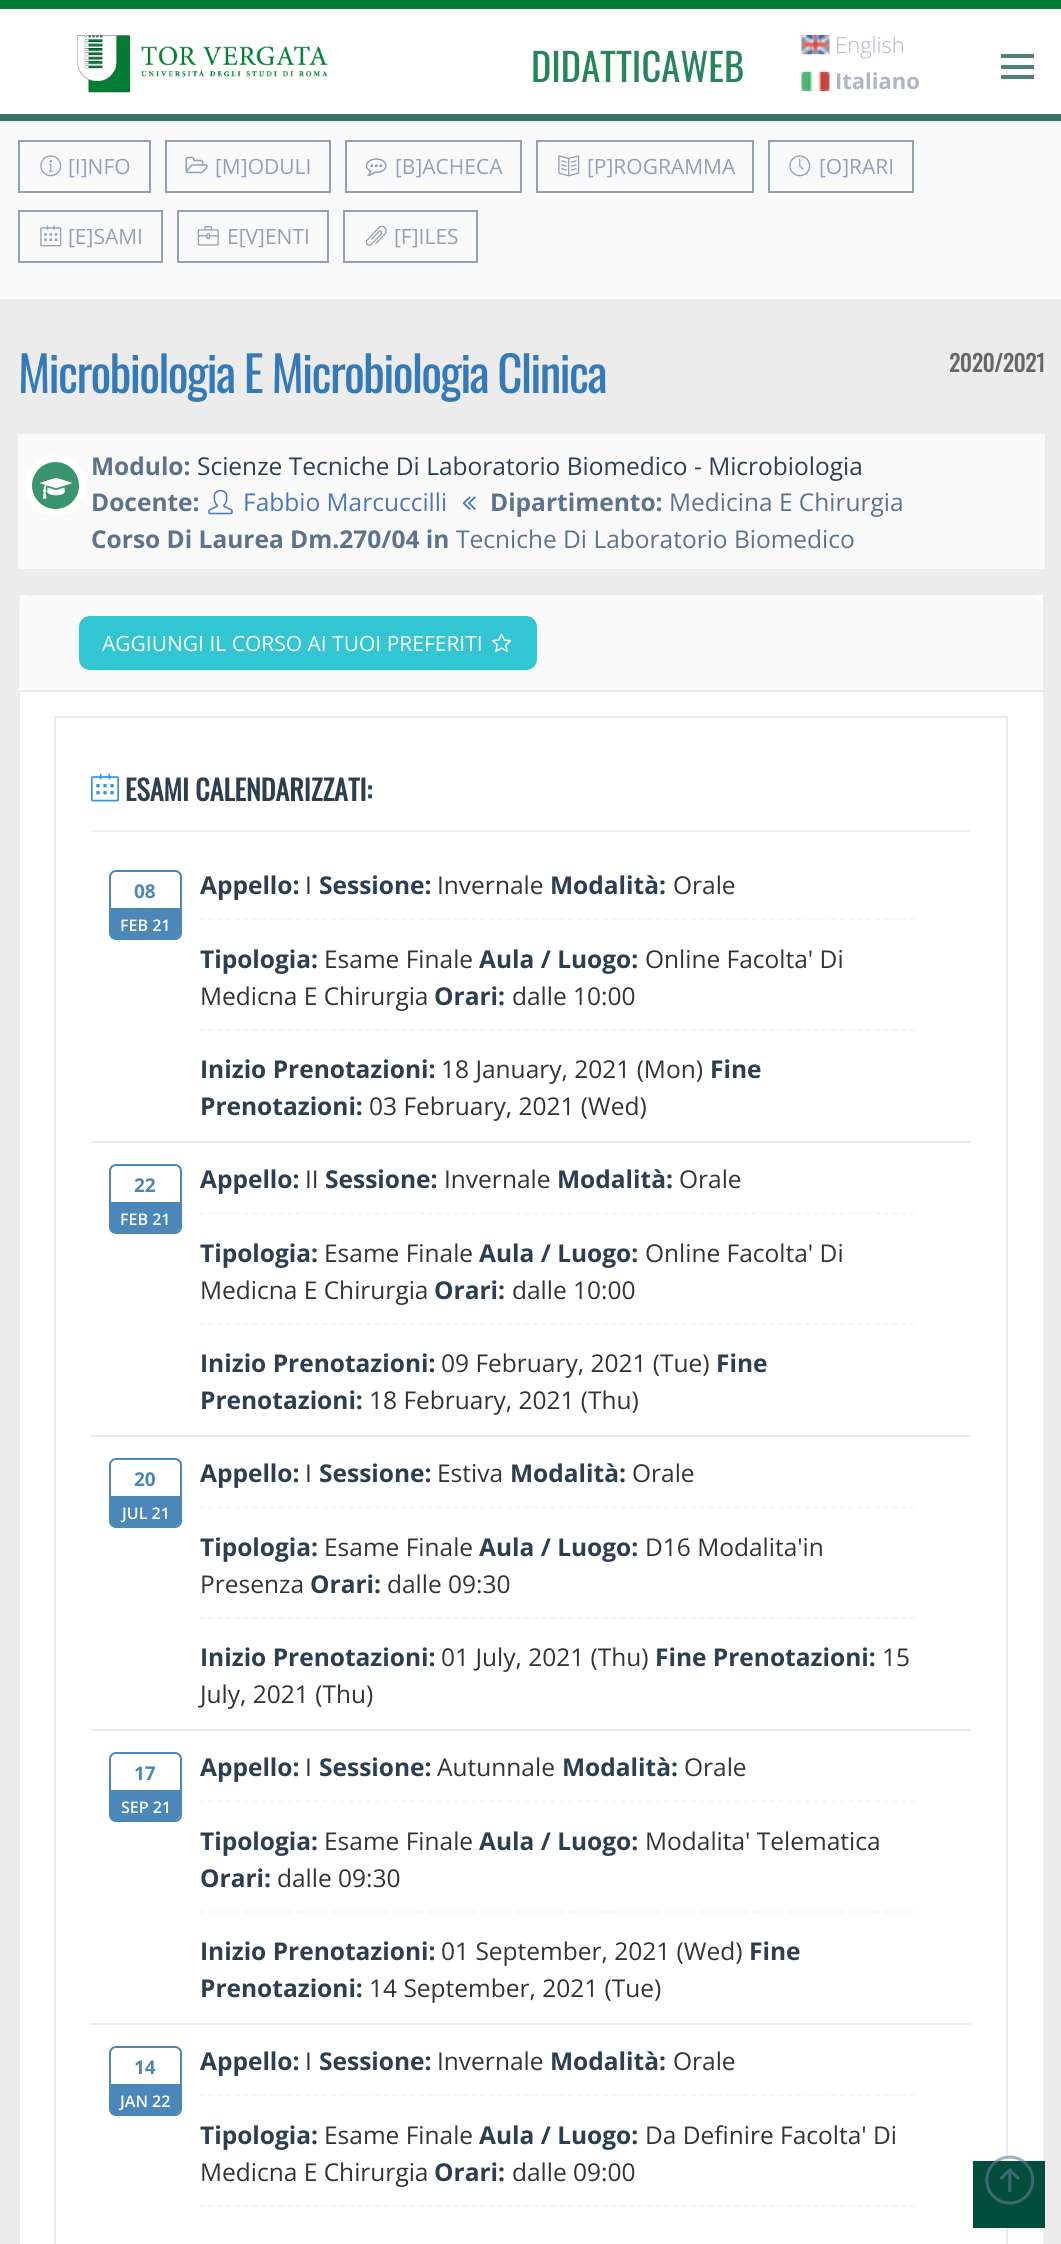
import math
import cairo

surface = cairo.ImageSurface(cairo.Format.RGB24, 1061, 2244)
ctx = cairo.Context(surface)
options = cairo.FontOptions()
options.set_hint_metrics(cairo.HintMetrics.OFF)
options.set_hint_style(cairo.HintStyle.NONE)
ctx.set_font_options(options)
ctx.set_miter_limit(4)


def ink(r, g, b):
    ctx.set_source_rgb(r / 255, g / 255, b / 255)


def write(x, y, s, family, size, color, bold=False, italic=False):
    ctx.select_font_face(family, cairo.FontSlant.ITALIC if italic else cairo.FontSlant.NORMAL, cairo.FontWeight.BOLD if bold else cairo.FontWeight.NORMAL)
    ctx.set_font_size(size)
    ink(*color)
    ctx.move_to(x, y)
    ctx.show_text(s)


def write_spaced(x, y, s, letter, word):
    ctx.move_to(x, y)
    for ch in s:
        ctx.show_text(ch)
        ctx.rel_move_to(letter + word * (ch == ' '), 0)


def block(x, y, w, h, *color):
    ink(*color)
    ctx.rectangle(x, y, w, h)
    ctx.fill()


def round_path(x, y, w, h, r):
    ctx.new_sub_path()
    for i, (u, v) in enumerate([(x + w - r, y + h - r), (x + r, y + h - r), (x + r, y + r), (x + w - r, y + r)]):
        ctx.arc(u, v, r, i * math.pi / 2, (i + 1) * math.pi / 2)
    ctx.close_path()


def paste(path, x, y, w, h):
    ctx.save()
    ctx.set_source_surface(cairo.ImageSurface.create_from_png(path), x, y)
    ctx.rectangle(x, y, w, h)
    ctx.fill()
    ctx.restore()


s1 = dict(family="Oswald", size=38.5, color=(40, 132, 95))
s2 = dict(family="Open Sans Light", size=22, color=(175, 181, 194))
s3 = dict(family="Open Sans", size=22, color=(175, 181, 194), bold=True)
s4 = dict(family="Open Sans", size=21, color=(148, 160, 178))
s5 = dict(family="Oswald", size=22.75, color=(102, 102, 102), bold=True)
s6 = dict(family="Open Sans", size=24.5, color=(94, 115, 139), bold=True)
s7 = dict(family="Open Sans", size=24.5, color=(44, 62, 80))
s8 = dict(family="Open Sans", size=24.5, color=(75, 119, 190))
s9 = dict(family="Open Sans", size=24.5, color=(94, 115, 139))
s10 = dict(family="Open Sans", size=21, color=(255, 255, 255))
s11 = dict(family="Oswald", size=28, color=(44, 62, 80), bold=True)
s12 = dict(family="Open Sans", size=19, color=(76, 135, 185), bold=True)
s13 = dict(family="Open Sans SemiBold", size=16, color=(255, 255, 255))
s14 = dict(family="Open Sans", size=24.5, color=(44, 62, 80), bold=True)
s15 = dict(family="Open Sans", size=24.5, color=(51, 51, 51))

ink(59, 113, 100)
ctx.paint()
block(0, 9, 1061, 105, 255, 255, 255)
block(0, 0, 1061, 9, 0, 125, 52)
paste("pic1.png", 77, 35, 251, 58)
write(531, 82, "DIDATTICAWEB", **s1)
paste("pic2.png", 801, 35, 29, 20)
write(835, 53, "English", **s2)
paste("pic3.png", 801, 71, 29, 20)
write(835, 89, "Italiano", **s3)
block(1001, 65, 33, 4, 78, 130, 119)
block(1001, 54, 33, 4, 78, 130, 119)
block(1001, 75, 33, 4, 78, 130, 119)
block(0, 301, 1061, 1943, 236, 236, 236)
block(0, 123, 1061, 176, 250, 250, 250)
block(0, 121, 1061, 2, 237, 237, 237)
block(0, 299, 1061, 2, 231, 236, 241)
ctx.rectangle(19, 141, 131, 51)
ink(148, 160, 178)
ctx.stroke()
paste("pic4.png", 40, 155, 22, 22)
write(68, 174, "[I]NFO", **s4)
ctx.rectangle(166, 141, 164, 51)
ctx.stroke()
paste("pic5.png", 185, 156, 23, 18)
write(215, 174, "[M]ODULI", **s4)
ctx.rectangle(346, 141, 175, 51)
ctx.stroke()
paste("pic6.png", 365, 158, 22, 19)
write(395, 174, "[B]ACHECA", **s4)
ctx.rectangle(537, 141, 216, 51)
ctx.stroke()
paste("pic7.png", 558, 155, 22, 22)
write(587, 174, "[P]ROGRAMMA", **s4)
ctx.rectangle(769, 141, 144, 51)
ctx.stroke()
paste("pic8.png", 789, 155, 22, 22)
write(819, 174, "[O]RARI", **s4)
ctx.rectangle(19, 211, 143, 51)
ctx.stroke()
paste("pic9.png", 40, 225, 22, 22)
write(68, 244, "[E]SAMI", **s4)
ctx.rectangle(178, 211, 150, 51)
ctx.stroke()
paste("pic10.png", 197, 226, 22, 20)
write(227, 244, "E[V]ENTI", **s4)
ctx.rectangle(344, 211, 133, 51)
ctx.stroke()
paste("pic11.png", 365, 225, 22, 21)
write(394, 244, "[F]ILES", **s4)
ctx.select_font_face("Oswald")
ctx.set_font_size(49)
ink(51, 122, 183)
write_spaced(18, 393, "Microbiologia E Microbiologia Clinica", -1.75, 0)
write(949, 372, "2020/2021", **s5)
block(18, 434, 1027, 135, 250, 250, 250)
ink(59, 148, 112)
ctx.new_path()
ctx.arc(55.5, 485.5, 27, 0, 2 * math.pi)
ctx.fill_preserve()
ink(255, 255, 255)
ctx.set_line_width(7)
ctx.stroke()
paste("pic12.png", 40, 477, 32, 22)
write(91, 475, "Modulo:", **s6)
write(197, 475, "Scienze Tecniche Di Laboratorio Biomedico - Microbiologia", **s7)
write(91, 511, "Docente:", **s6)
paste("pic13.png", 208, 489, 25, 26)
write(243, 511, "Fabbio Marcuccilli", **s8)
paste("pic14.png", 462, 496, 14, 14)
write(490, 511, "Dipartimento:", **s6)
write(669, 511, "Medicina E Chirurgia", **s9)
write(91, 548, "Corso Di Laurea Dm.270/04 in", **s6)
write(456, 548, "Tecniche Di Laboratorio Biomedico", **s9)
ink(255, 255, 255)
ctx.rectangle(19, 594, 1025, 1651)
ctx.fill_preserve()
ink(231, 236, 241)
ctx.set_line_width(2)
ctx.stroke()
ink(250, 250, 250)
ctx.new_path()
ctx.move_to(33, 595)
ctx.line_to(1029, 595)
ctx.curve_to(1036.5, 595, 1043, 601.5, 1043, 609)
ctx.line_to(1043, 691)
ctx.line_to(19, 691)
ctx.line_to(19, 609)
ctx.curve_to(19, 601.5, 25.5, 595, 33, 595)
ctx.close_path()
ctx.fill()
block(19, 690, 1024, 2, 231, 236, 241)
ink(50, 197, 210)
round_path(80, 617, 456, 52, 10)
ctx.fill_preserve()
ctx.stroke()
write(102, 651, "AGGIUNGI IL CORSO AI TUOI PREFERITI", **s10)
paste("pic15.png", 491, 633, 21, 19)
ctx.rectangle(55, 717, 952, 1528)
ink(231, 236, 241)
ctx.stroke()
block(91, 830, 880, 2, 238, 241, 245)
paste("pic16.png", 91, 773, 28, 29)
write(125, 801, "ESAMI CALENDARIZZATI:", **s11)
block(91, 1141, 880, 2, 231, 236, 241)
round_path(110, 871, 71, 68, 6)
ink(76, 135, 185)
ctx.stroke()
write(134, 898, "08", **s12)
ctx.new_path()
ctx.move_to(110, 908)
ctx.line_to(180, 908)
ctx.line_to(180, 933)
ctx.curve_to(180, 936, 178, 938, 175, 938)
ctx.line_to(115, 938)
ctx.curve_to(112, 938, 110, 936, 110, 933)
ctx.close_path()
ctx.fill()
write(120, 931, "FEB 21", **s13)
write(200, 894, "Appello:", **s14)
write(305, 894, "I", **s15)
write(319, 894, "Sessione:", **s14)
write(437, 894, "Invernale", **s15)
write(550, 894, "Modalità:", **s14)
write(673, 894, "Orale", **s15)
ctx.new_path()
ctx.move_to(199.5, 919.5)
ctx.line_to(915, 919.5)
ink(245, 245, 245)
ctx.set_line_width(1.8)
ctx.set_dash([5.25, 3.52])
ctx.stroke()
write(200, 968, "Tipologia:", **s14)
write(324, 968, "Esame Finale", **s15)
write(479, 968, "Aula / Luogo:", **s14)
write(645, 968, "Online Facolta' Di", **s15)
write(200, 1005, "Medicna E Chirurgia", **s15)
write(434, 1005, "Orari:", **s14)
write(512, 1005, "dalle 10:00", **s15)
ctx.new_path()
ctx.move_to(199.5, 1030)
ctx.line_to(915, 1030)
ink(245, 245, 245)
ctx.stroke()
write(200, 1078, "Inizio Prenotazioni:", **s14)
write(441, 1078, "18 January, 2021 (Mon)", **s15)
write(710, 1078, "Fine", **s14)
write(200, 1115, "Prenotazioni:", **s14)
write(369, 1115, "03 February, 2021 (Wed)", **s15)
block(91, 1435, 880, 2, 231, 236, 241)
round_path(110, 1165, 71, 68, 6)
ink(76, 135, 185)
ctx.set_line_width(2)
ctx.set_dash([])
ctx.stroke()
write(134, 1192, "22", **s12)
ctx.new_path()
ctx.move_to(110, 1202)
ctx.line_to(180, 1202)
ctx.line_to(180, 1227)
ctx.curve_to(180, 1230, 178, 1232, 175, 1232)
ctx.line_to(115, 1232)
ctx.curve_to(112, 1232, 110, 1230, 110, 1227)
ctx.close_path()
ctx.fill()
write(120, 1225, "FEB 21", **s13)
write(200, 1188, "Appello:", **s14)
write(305, 1188, "II", **s15)
write(325, 1188, "Sessione:", **s14)
write(444, 1188, "Invernale", **s15)
write(557, 1188, "Modalità:", **s14)
write(679, 1188, "Orale", **s15)
ctx.new_path()
ctx.move_to(199.5, 1213.5)
ctx.line_to(915, 1213.5)
ink(245, 245, 245)
ctx.set_line_width(1.8)
ctx.set_dash([5.25, 3.52])
ctx.stroke()
write(200, 1262, "Tipologia:", **s14)
write(324, 1262, "Esame Finale", **s15)
write(479, 1262, "Aula / Luogo:", **s14)
write(645, 1262, "Online Facolta' Di", **s15)
write(200, 1299, "Medicna E Chirurgia", **s15)
write(434, 1299, "Orari:", **s14)
write(512, 1299, "dalle 10:00", **s15)
ctx.new_path()
ctx.move_to(199.5, 1324)
ctx.line_to(915, 1324)
ink(245, 245, 245)
ctx.stroke()
write(200, 1372, "Inizio Prenotazioni:", **s14)
write(441, 1372, "09 February, 2021 (Tue)", **s15)
write(716, 1372, "Fine", **s14)
write(200, 1409, "Prenotazioni:", **s14)
write(369, 1409, "18 February, 2021 (Thu)", **s15)
block(91, 1729, 880, 2, 231, 236, 241)
round_path(110, 1459, 71, 68, 6)
ink(76, 135, 185)
ctx.set_line_width(2)
ctx.set_dash([])
ctx.stroke()
write(134, 1486, "20", **s12)
ctx.new_path()
ctx.move_to(110, 1496)
ctx.line_to(180, 1496)
ctx.line_to(180, 1521)
ctx.curve_to(180, 1524, 178, 1526, 175, 1526)
ctx.line_to(115, 1526)
ctx.curve_to(112, 1526, 110, 1524, 110, 1521)
ctx.close_path()
ctx.fill()
write(122, 1519, "JUL 21", **s13)
write(200, 1482, "Appello:", **s14)
write(305, 1482, "I", **s15)
write(319, 1482, "Sessione:", **s14)
write(437, 1482, "Estiva", **s15)
write(510, 1482, "Modalità:", **s14)
write(632, 1482, "Orale", **s15)
ctx.new_path()
ctx.move_to(199.5, 1507.5)
ctx.line_to(915, 1507.5)
ink(245, 245, 245)
ctx.set_line_width(1.8)
ctx.set_dash([5.25, 3.52])
ctx.stroke()
write(200, 1556, "Tipologia:", **s14)
write(324, 1556, "Esame Finale", **s15)
write(479, 1556, "Aula / Luogo:", **s14)
write(645, 1556, "D16 Modalita'in", **s15)
write(200, 1593, "Presenza", **s15)
write(310, 1593, "Orari:", **s14)
write(387, 1593, "dalle 09:30", **s15)
ctx.new_path()
ctx.move_to(199.5, 1618)
ctx.line_to(915, 1618)
ink(245, 245, 245)
ctx.stroke()
write(200, 1666, "Inizio Prenotazioni:", **s14)
write(441, 1666, "01 July, 2021 (Thu)", **s15)
write(655, 1666, "Fine Prenotazioni:", **s14)
write(882, 1666, "15", **s15)
write(200, 1703, "July, 2021 (Thu)", **s15)
block(91, 2023, 880, 2, 231, 236, 241)
round_path(110, 1753, 71, 68, 6)
ink(76, 135, 185)
ctx.set_line_width(2)
ctx.set_dash([])
ctx.stroke()
write(134, 1780, "17", **s12)
ctx.new_path()
ctx.move_to(110, 1790)
ctx.line_to(180, 1790)
ctx.line_to(180, 1815)
ctx.curve_to(180, 1818, 178, 1820, 175, 1820)
ctx.line_to(115, 1820)
ctx.curve_to(112, 1820, 110, 1818, 110, 1815)
ctx.close_path()
ctx.fill()
write(121, 1813, "SEP 21", **s13)
write(200, 1776, "Appello:", **s14)
write(305, 1776, "I", **s15)
write(319, 1776, "Sessione:", **s14)
write(437, 1776, "Autunnale", **s15)
write(562, 1776, "Modalità:", **s14)
write(684, 1776, "Orale", **s15)
ctx.new_path()
ctx.move_to(199.5, 1801.5)
ctx.line_to(915, 1801.5)
ink(245, 245, 245)
ctx.set_line_width(1.8)
ctx.set_dash([5.25, 3.52])
ctx.stroke()
write(200, 1850, "Tipologia:", **s14)
write(324, 1850, "Esame Finale", **s15)
write(479, 1850, "Aula / Luogo:", **s14)
write(645, 1850, "Modalita' Telematica", **s15)
write(200, 1887, "Orari:", **s14)
write(277, 1887, "dalle 09:30", **s15)
ctx.new_path()
ctx.move_to(199.5, 1912)
ctx.line_to(915, 1912)
ink(245, 245, 245)
ctx.stroke()
write(200, 1960, "Inizio Prenotazioni:", **s14)
write(441, 1960, "01 September, 2021 (Wed)", **s15)
write(749, 1960, "Fine", **s14)
write(200, 1997, "Prenotazioni:", **s14)
write(369, 1997, "14 September, 2021 (Tue)", **s15)
round_path(110, 2047, 71, 68, 6)
ink(76, 135, 185)
ctx.set_line_width(2)
ctx.set_dash([])
ctx.stroke()
write(134, 2074, "14", **s12)
ctx.new_path()
ctx.move_to(110, 2084)
ctx.line_to(180, 2084)
ctx.line_to(180, 2109)
ctx.curve_to(180, 2112, 178, 2114, 175, 2114)
ctx.line_to(115, 2114)
ctx.curve_to(112, 2114, 110, 2112, 110, 2109)
ctx.close_path()
ctx.fill()
write(120, 2107, "JAN 22", **s13)
write(200, 2070, "Appello:", **s14)
write(305, 2070, "I", **s15)
write(319, 2070, "Sessione:", **s14)
write(437, 2070, "Invernale", **s15)
write(550, 2070, "Modalità:", **s14)
write(673, 2070, "Orale", **s15)
ctx.new_path()
ctx.move_to(199.5, 2095.5)
ctx.line_to(915, 2095.5)
ink(245, 245, 245)
ctx.set_line_width(1.8)
ctx.set_dash([5.25, 3.52])
ctx.stroke()
write(200, 2144, "Tipologia:", **s14)
write(324, 2144, "Esame Finale", **s15)
write(479, 2144, "Aula / Luogo:", **s14)
write(645, 2144, "Da Definire Facolta' Di", **s15)
write(200, 2181, "Medicna E Chirurgia", **s15)
write(434, 2181, "Orari:", **s14)
write(512, 2181, "dalle 09:00", **s15)
ctx.new_path()
ctx.move_to(199.5, 2206)
ctx.line_to(915, 2206)
ink(245, 245, 245)
ctx.stroke()
block(973, 2161, 72, 67, 2, 77, 60)
paste("pic17.png", 985, 2155, 50, 50)
surface.write_to_png("screenshot.png")
